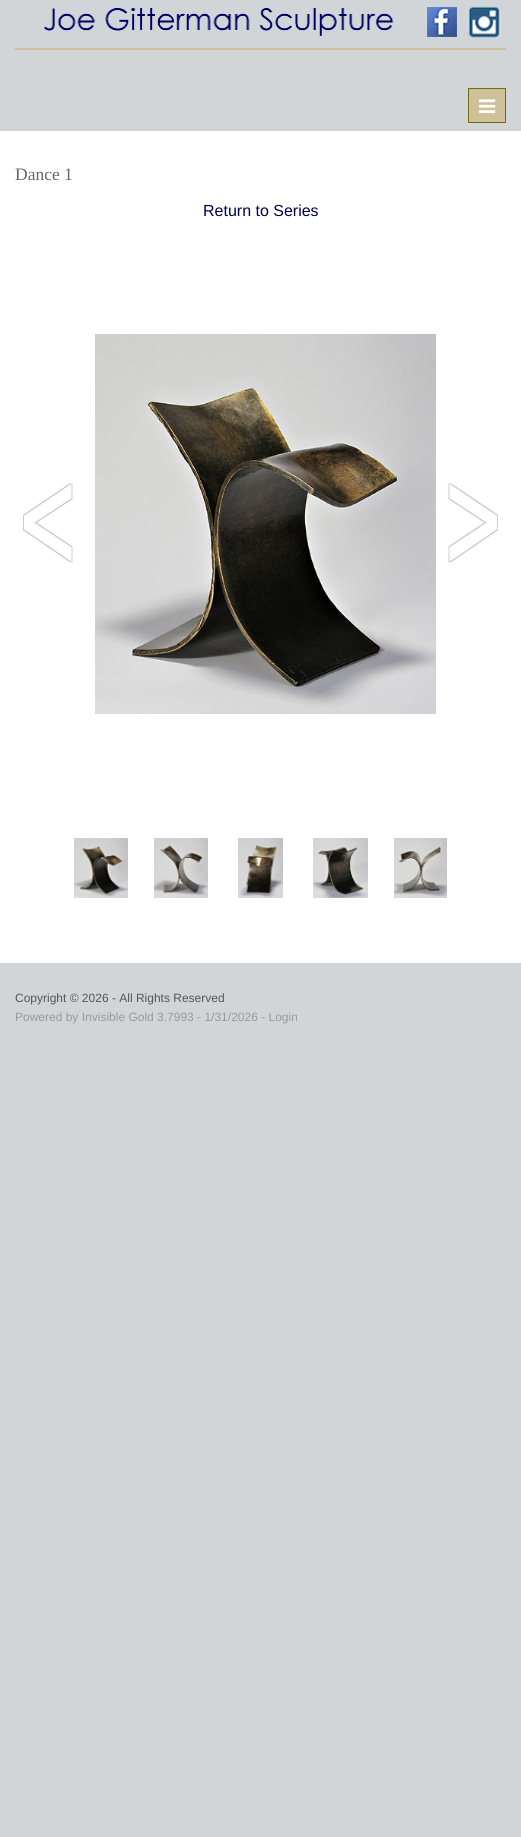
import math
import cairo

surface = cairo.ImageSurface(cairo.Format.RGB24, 521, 1837)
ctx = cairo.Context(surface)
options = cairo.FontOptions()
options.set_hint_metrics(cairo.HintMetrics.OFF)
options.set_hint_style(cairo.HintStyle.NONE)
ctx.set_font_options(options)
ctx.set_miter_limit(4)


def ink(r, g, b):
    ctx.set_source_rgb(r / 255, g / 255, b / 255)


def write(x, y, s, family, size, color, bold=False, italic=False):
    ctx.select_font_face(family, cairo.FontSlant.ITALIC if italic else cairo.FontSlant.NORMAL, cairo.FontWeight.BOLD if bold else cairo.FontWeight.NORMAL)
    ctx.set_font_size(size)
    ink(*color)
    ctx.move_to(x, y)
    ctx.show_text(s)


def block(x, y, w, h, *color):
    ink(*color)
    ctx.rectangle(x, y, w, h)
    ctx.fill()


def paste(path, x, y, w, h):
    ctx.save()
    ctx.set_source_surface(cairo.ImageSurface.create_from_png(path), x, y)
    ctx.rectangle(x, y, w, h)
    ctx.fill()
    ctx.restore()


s1 = dict(family="Liberation Serif", size=17.5, color=(102, 102, 102))
s2 = dict(family="Liberation Sans", size=16, color=(0, 0, 79))
s3 = dict(family="Liberation Sans", size=12, color=(85, 85, 85))
s4 = dict(family="Liberation Sans", size=12, color=(153, 153, 153))

ink(209, 213, 216)
ctx.paint()
block(15, 48, 491, 2, 205, 193, 154)
paste("pic1.png", 43, 7, 351, 29)
paste("pic2.png", 427, 7, 30, 30)
paste("pic3.png", 467, 5, 34, 34)
ctx.rectangle(468.5, 88.5, 37, 34)
ctx.fill_preserve()
ink(111, 109, 6)
ctx.set_line_width(1)
ctx.stroke()
paste("pic4.png", 479, 99, 17, 14)
block(0, 131, 521, 832, 255, 255, 255)
write(15, 180, "Dance 1", **s1)
write(203, 216, "Return to Series", **s2)
paste("pic5.png", 23, 483, 50, 80)
paste("pic6.png", 95, 334, 341, 380)
paste("pic7.png", 448, 483, 50, 80)
paste("pic8.png", 74, 838, 54, 60)
paste("pic9.png", 154, 838, 54, 60)
paste("pic10.png", 238, 838, 45, 60)
paste("pic11.png", 313, 838, 55, 60)
paste("pic12.png", 394, 838, 53, 60)
write(15, 1002, "Copyright © 2026 - All Rights Reserved", **s3)
write(15, 1021, "Powered by Invisible Gold 3.7993 - 1/31/2026 - Login", **s4)
surface.write_to_png("screenshot.png")
